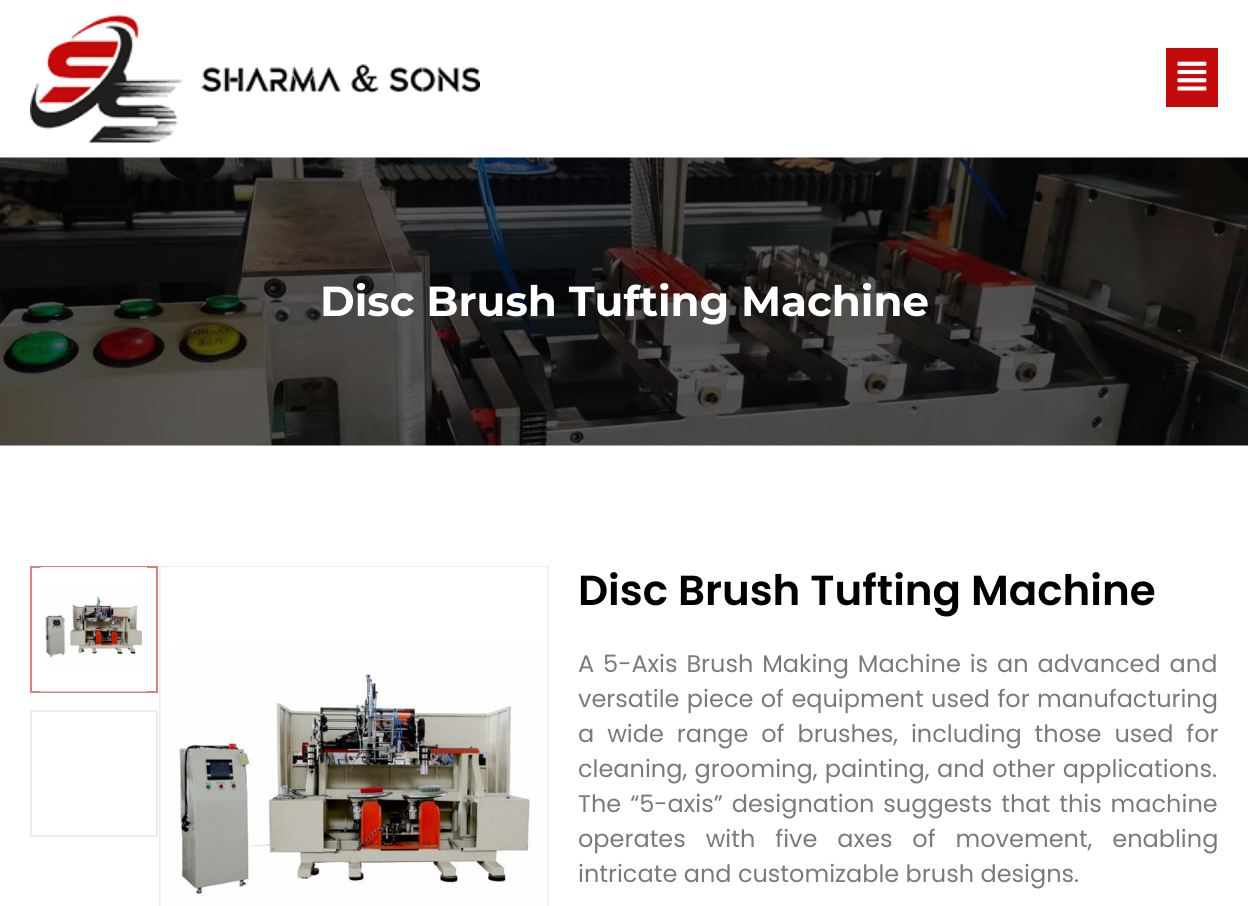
import math
import cairo

surface = cairo.ImageSurface(cairo.Format.RGB24, 1248, 906)
ctx = cairo.Context(surface)
options = cairo.FontOptions()
options.set_hint_metrics(cairo.HintMetrics.OFF)
options.set_hint_style(cairo.HintStyle.NONE)
ctx.set_font_options(options)
ctx.set_miter_limit(4)


def ink(r, g, b):
    ctx.set_source_rgb(r / 255, g / 255, b / 255)


def write(x, y, s, family, size, color, bold=False, italic=False):
    ctx.select_font_face(family, cairo.FontSlant.ITALIC if italic else cairo.FontSlant.NORMAL, cairo.FontWeight.BOLD if bold else cairo.FontWeight.NORMAL)
    ctx.set_font_size(size)
    ink(*color)
    ctx.move_to(x, y)
    ctx.show_text(s)


def write_spaced(x, y, s, letter, word):
    ctx.move_to(x, y)
    for ch in s:
        ctx.show_text(ch)
        ctx.rel_move_to(letter + word * (ch == ' '), 0)


def block(x, y, w, h, *color):
    ink(*color)
    ctx.rectangle(x, y, w, h)
    ctx.fill()


def paste(path, x, y, w, h):
    ctx.save()
    ctx.set_source_surface(cairo.ImageSurface.create_from_png(path), x, y)
    ctx.rectangle(x, y, w, h)
    ctx.fill()
    ctx.restore()


s1 = dict(family="Montserrat", size=42, color=(255, 255, 255), bold=True)
s2 = dict(family="Poppins SemiBold", size=42, color=(0, 0, 0))
s3 = dict(family="Poppins", size=24, color=(122, 122, 122))

ink(255, 255, 255)
ctx.paint()
paste("pic1.png", 30, 15, 450, 128)
block(1166, 48, 52, 59, 196, 10, 11)
paste("pic2.png", 1177, 61, 30, 30)
paste("pic3.png", 0, 157, 1248, 289)
write(320, 316, "Disc Brush Tufting Machine", **s1)
ctx.rectangle(31, 567, 126, 125)
ink(224, 125, 126)
ctx.stroke()
paste("pic4.png", 40, 567, 107, 125)
ctx.rectangle(31, 711, 126, 125)
ink(237, 237, 237)
ctx.stroke()
ctx.rectangle(160, 567, 388, 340)
ctx.stroke()
paste("pic5.png", 160, 567, 388, 339)
write(578, 605, "Disc Brush Tufting Machine", **s2)
ctx.select_font_face("Poppins")
ctx.set_font_size(24)
ink(122, 122, 122)
write_spaced(578, 672, "A 5-Axis Brush Making Machine is an advanced and", 0, 2.5)
write_spaced(578, 707, "versatile piece of equipment used for manufacturing", 0, 1)
write_spaced(578, 742, "a wide range of brushes, including those used for", 0, 6.5)
write_spaced(578, 777, "cleaning, grooming, painting, and other applications.", 0, 1)
write_spaced(578, 812, "The “5-axis” designation suggests that this machine", 0, 2.5)
write_spaced(578, 847, "operates with five axes of movement, enabling", 0, 13.5)
write(578, 882, "intricate and customizable brush designs.", **s3)
surface.write_to_png("screenshot.png")
